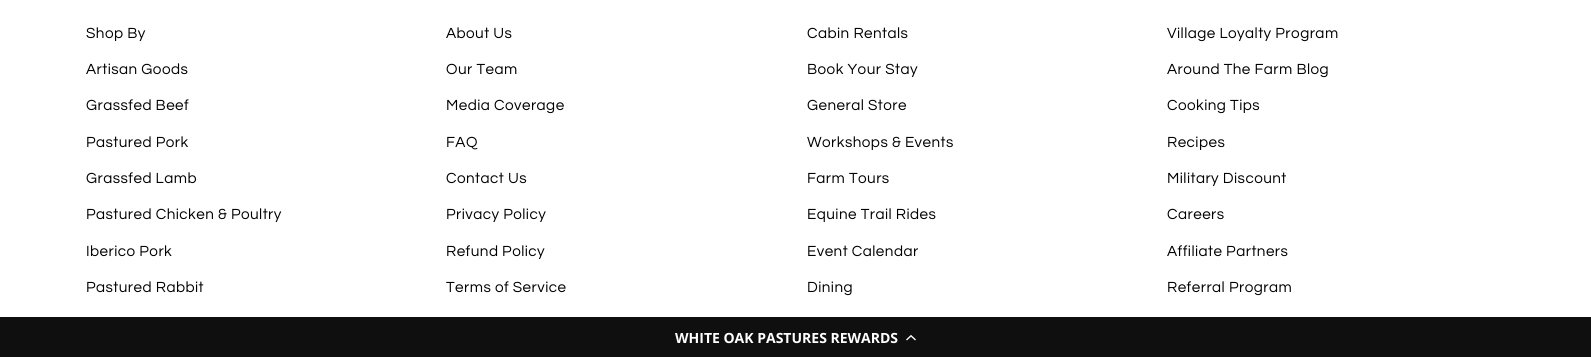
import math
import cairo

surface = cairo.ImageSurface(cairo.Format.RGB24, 1591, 357)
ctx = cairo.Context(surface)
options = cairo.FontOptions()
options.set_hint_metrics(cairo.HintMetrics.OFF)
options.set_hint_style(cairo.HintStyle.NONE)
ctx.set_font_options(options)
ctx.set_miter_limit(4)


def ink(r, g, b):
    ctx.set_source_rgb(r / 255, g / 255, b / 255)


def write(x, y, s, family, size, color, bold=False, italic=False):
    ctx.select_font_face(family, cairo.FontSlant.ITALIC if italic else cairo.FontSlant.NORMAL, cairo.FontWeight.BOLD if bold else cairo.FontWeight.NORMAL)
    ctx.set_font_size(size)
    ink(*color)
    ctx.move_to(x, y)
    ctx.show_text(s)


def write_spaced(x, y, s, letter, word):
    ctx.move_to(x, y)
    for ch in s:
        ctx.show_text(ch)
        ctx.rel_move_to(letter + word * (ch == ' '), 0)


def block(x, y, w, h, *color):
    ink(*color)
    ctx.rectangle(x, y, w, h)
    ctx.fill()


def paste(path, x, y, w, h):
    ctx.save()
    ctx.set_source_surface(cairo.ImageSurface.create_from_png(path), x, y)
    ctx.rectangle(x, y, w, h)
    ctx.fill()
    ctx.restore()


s1 = dict(family="Open Sans", size=14, color=(255, 255, 255), bold=True)

ink(255, 255, 255)
ctx.paint()
ctx.select_font_face("Questrial")
ctx.set_font_size(15.25)
ink(0, 0, 0)
write_spaced(86, 38, "Shop By", 0.45, 0)
write_spaced(86, 74, "Artisan Goods", 0.45, 0)
write_spaced(86, 110, "Grassfed Beef", 0.45, 0)
write_spaced(86, 147, "Pastured Pork", 0.45, 0)
write_spaced(86, 183, "Grassfed Lamb", 0.45, 0)
write_spaced(86, 219, "Pastured Chicken & Poultry", 0.45, 0)
write_spaced(86, 256, "Iberico Pork", 0.45, 0)
write_spaced(86, 292, "Pastured Rabbit", 0.45, 0)
write_spaced(446, 38, "About Us", 0.45, 0)
write_spaced(446, 74, "Our Team", 0.45, 0)
write_spaced(446, 110, "Media Coverage", 0.45, 0)
write_spaced(446, 147, "FAQ", 0.45, 0)
write_spaced(446, 183, "Contact Us", 0.45, 0)
write_spaced(446, 219, "Privacy Policy", 0.45, 0)
write_spaced(446, 256, "Refund Policy", 0.45, 0)
write_spaced(446, 292, "Terms of Service", 0.45, 0)
write_spaced(807, 38, "Cabin Rentals", 0.45, 0)
write_spaced(807, 74, "Book Your Stay", 0.45, 0)
write_spaced(807, 110, "General Store", 0.45, 0)
write_spaced(807, 147, "Workshops & Events", 0.45, 0)
write_spaced(807, 183, "Farm Tours", 0.45, 0)
write_spaced(807, 219, "Equine Trail Rides", 0.45, 0)
write_spaced(807, 256, "Event Calendar", 0.45, 0)
write_spaced(807, 292, "Dining", 0.45, 0)
write_spaced(1167, 38, "Village Loyalty Program", 0.45, 0)
write_spaced(1167, 74, "Around The Farm Blog", 0.45, 0)
write_spaced(1167, 110, "Cooking Tips", 0.45, 0)
write_spaced(1167, 147, "Recipes", 0.45, 0)
write_spaced(1167, 183, "Military Discount", 0.45, 0)
write_spaced(1167, 219, "Careers", 0.45, 0)
write_spaced(1167, 256, "Affiliate Partners", 0.45, 0)
write_spaced(1167, 292, "Referral Program", 0.45, 0)
block(0, 317, 1591, 40, 15, 15, 15)
write(675, 343, "WHITE OAK PASTURES REWARDS", **s1)
paste("pic1.png", 906, 335, 10, 6)
surface.write_to_png("screenshot.png")
